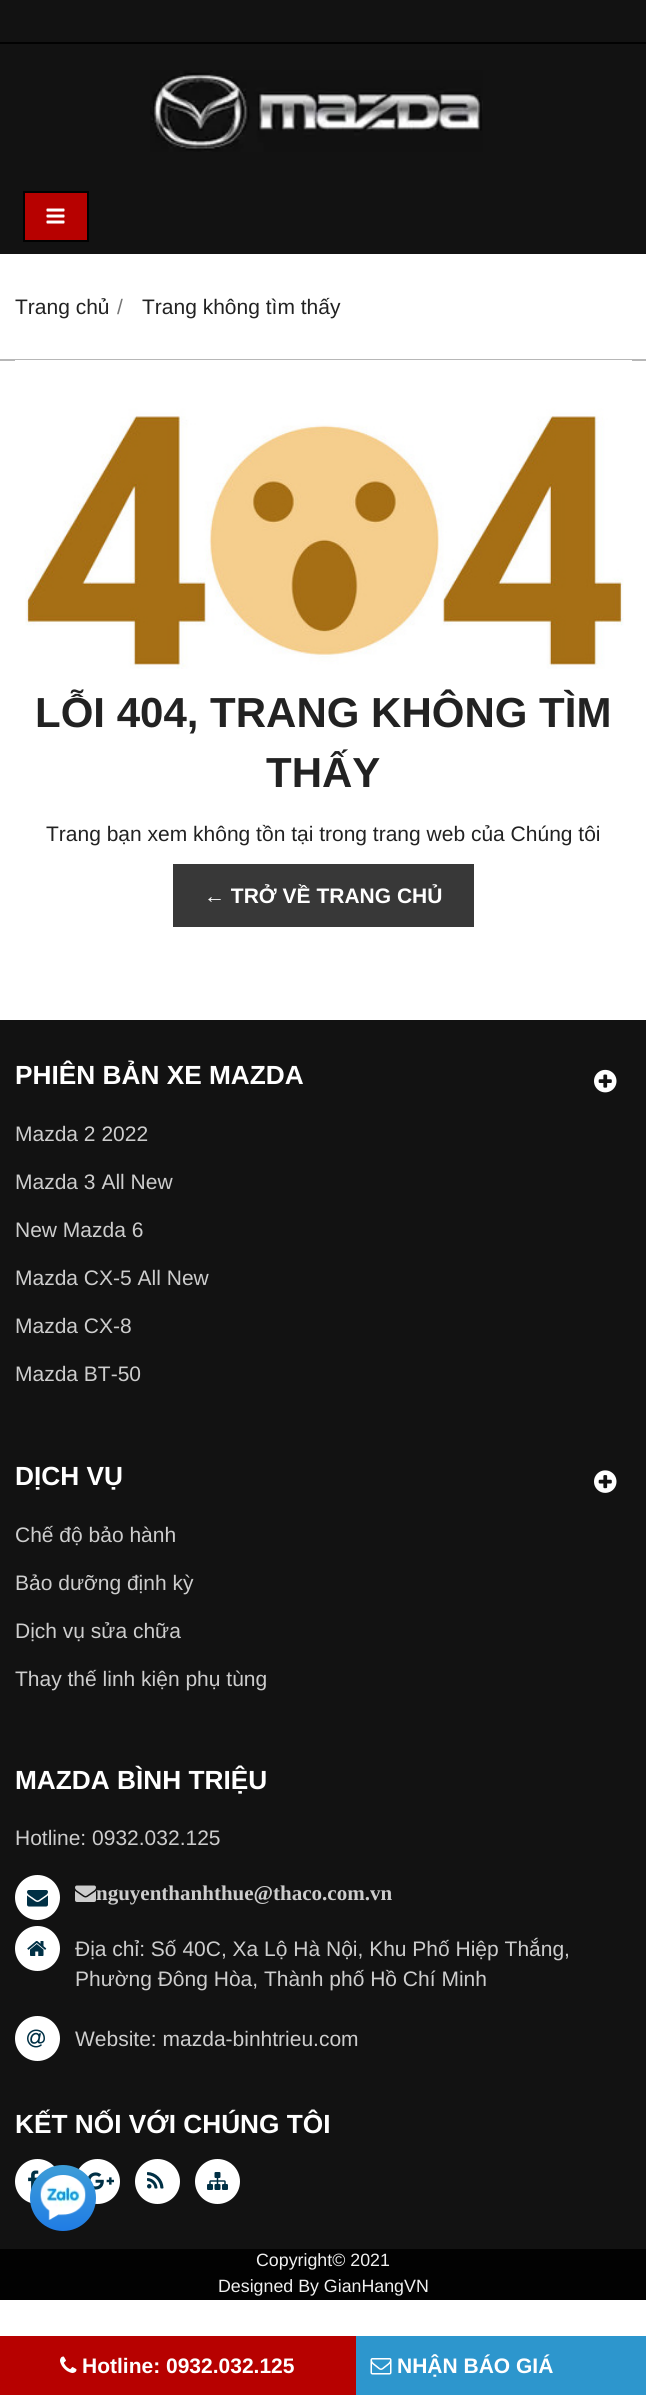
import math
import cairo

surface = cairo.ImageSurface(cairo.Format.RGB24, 646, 2395)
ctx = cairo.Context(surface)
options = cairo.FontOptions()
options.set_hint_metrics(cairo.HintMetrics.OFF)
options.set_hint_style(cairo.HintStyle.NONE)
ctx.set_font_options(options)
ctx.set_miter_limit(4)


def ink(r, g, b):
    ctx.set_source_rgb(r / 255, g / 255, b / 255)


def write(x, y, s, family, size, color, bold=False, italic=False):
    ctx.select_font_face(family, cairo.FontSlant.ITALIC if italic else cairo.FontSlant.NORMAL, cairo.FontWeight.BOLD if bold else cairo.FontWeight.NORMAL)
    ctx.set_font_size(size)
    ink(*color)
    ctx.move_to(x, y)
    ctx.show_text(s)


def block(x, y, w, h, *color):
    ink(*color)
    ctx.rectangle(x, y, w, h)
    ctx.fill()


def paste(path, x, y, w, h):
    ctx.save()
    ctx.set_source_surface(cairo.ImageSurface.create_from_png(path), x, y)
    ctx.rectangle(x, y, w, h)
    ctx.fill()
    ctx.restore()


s1 = dict(family="Liberation Sans", size=21, color=(34, 34, 34))
s2 = dict(family="Liberation Sans", size=21, color=(119, 119, 119))
s3 = dict(family="Liberation Sans", size=42, color=(34, 34, 34), bold=True)
s4 = dict(family="Liberation Sans", size=21, color=(255, 255, 255), bold=True)
s5 = dict(family="Liberation Sans", size=26.25, color=(255, 255, 255), bold=True)
s6 = dict(family="Liberation Sans", size=21, color=(205, 205, 205))
s7 = dict(family="Liberation Serif", size=21, color=(205, 205, 205), bold=True)
s8 = dict(family="Liberation Sans", size=17.8, color=(241, 241, 241))

ink(255, 255, 255)
ctx.paint()
block(0, 0, 646, 42, 18, 18, 18)
block(0, 42, 646, 2, 2, 2, 2)
block(0, 44, 646, 210, 18, 18, 18)
paste("pic1.png", 150, 70, 333, 82)
ink(183, 1, 0)
ctx.rectangle(24, 192, 64, 49)
ctx.fill_preserve()
ink(2, 2, 2)
ctx.stroke()
paste("pic2.png", 46, 208, 19, 16)
block(0, 359, 646, 2, 183, 183, 183)
write(15, 314, "Trang chủ", **s1)
write(117, 314, "/", **s2)
write(142, 314, "Trang không tìm thấy", **s1)
block(15, 360, 617, 1, 255, 255, 255)
paste("pic3.png", 25, 408, 599, 261)
write(35, 727, "LỖI 404, TRANG KHÔNG TÌM", **s3)
write(266, 787, "THẤY", **s3)
write(46, 841, "Trang bạn xem không tồn tại trong trang web của Chúng tôi", **s1)
block(173, 864, 301, 63, 56, 56, 56)
write(204, 903, "← TRỞ VỀ TRANG CHỦ", **s4)
block(0, 1020, 646, 1229, 18, 18, 18)
write(15, 1084, "PHIÊN BẢN XE MAZDA", **s5)
paste("pic4.png", 594, 1069, 23, 24)
write(15, 1141, "Mazda 2 2022", **s6)
write(15, 1189, "Mazda 3 All New", **s6)
write(15, 1237, "New Mazda 6", **s6)
write(15, 1285, "Mazda CX-5 All New", **s6)
write(15, 1333, "Mazda CX-8", **s6)
write(15, 1381, "Mazda BT-50", **s6)
write(15, 1485, "DỊCH VỤ", **s5)
paste("pic5.png", 594, 1470, 23, 23)
write(15, 1542, "Chế độ bảo hành", **s6)
write(15, 1590, "Bảo dưỡng định kỳ", **s6)
write(15, 1638, "Dịch vụ sửa chữa", **s6)
write(15, 1686, "Thay thế linh kiện phụ tùng", **s6)
write(15, 1789, "MAZDA BÌNH TRIỆU", **s5)
write(15, 1845, "Hotline: 0932.032.125", **s6)
ink(255, 255, 255)
ctx.new_path()
ctx.arc(37.5, 1897.5, 22.5, 0, 2 * math.pi)
ctx.fill()
paste("pic6.png", 27, 1890, 21, 17)
paste("pic7.png", 75, 1885, 21, 17)
write(96, 1900, "nguyenthanhthue@thaco.com.vn", **s7)
ink(255, 255, 255)
ctx.new_path()
ctx.arc(37.5, 1948.5, 22.5, 0, 2 * math.pi)
ctx.fill()
paste("pic8.png", 27, 1941, 20, 15)
write(75, 1956, "Địa chỉ: Số 40C, Xa Lộ Hà Nội, Khu Phố Hiệp Thắng,", **s6)
write(75, 1986, "Phường Đông Hòa, Thành phố Hồ Chí Minh", **s6)
ink(255, 255, 255)
ctx.new_path()
ctx.arc(37.5, 2038.5, 22.5, 0, 2 * math.pi)
ctx.fill()
paste("pic9.png", 27, 2029, 18, 19)
write(75, 2046, "Website: mazda-binhtrieu.com", **s6)
write(15, 2133, "KẾT NỐI VỚI CHÚNG TÔI", **s5)
ctx.new_path()
ctx.arc(37.5, 2181.5, 22.5, 0, 2 * math.pi)
ctx.fill()
paste("pic10.png", 28, 2170, 11, 20)
ctx.arc(97.5, 2181.5, 22.5, 0, 2 * math.pi)
ctx.fill()
paste("pic11.png", 88, 2172, 26, 18)
ctx.arc(157.5, 2181.5, 22.5, 0, 2 * math.pi)
ctx.fill()
paste("pic12.png", 147, 2172, 17, 17)
ctx.arc(217.5, 2181.5, 22.5, 0, 2 * math.pi)
ctx.fill()
paste("pic13.png", 207, 2172, 21, 18)
block(0, 2249, 646, 51, 2, 2, 2)
write(256, 2266, "Copyright© 2021", **s8)
write(218, 2292, "Designed By GianHangVN", **s8)
gradient = cairo.LinearGradient(63, 2165, 63, 2231)
gradient.add_color_stop_rgba(0, 0.239, 0.616, 0.843, 1)
gradient.add_color_stop_rgba(1, 0.125, 0.486, 0.898, 1)
ctx.set_source(gradient)
ctx.new_path()
ctx.arc(63, 2198, 33, 0, 2 * math.pi)
ctx.fill()
paste("pic14.png", 40, 2175, 46, 45)
block(0, 2336, 356, 59, 183, 1, 0)
paste("pic15.png", 60, 2356, 17, 17)
write(82, 2373, "Hotline: 0932.032.125", **s4)
block(356, 2336, 290, 59, 45, 150, 205)
paste("pic16.png", 370, 2358, 22, 17)
write(397, 2373, "NHẬN BÁO GIÁ", **s4)
surface.write_to_png("screenshot.png")
